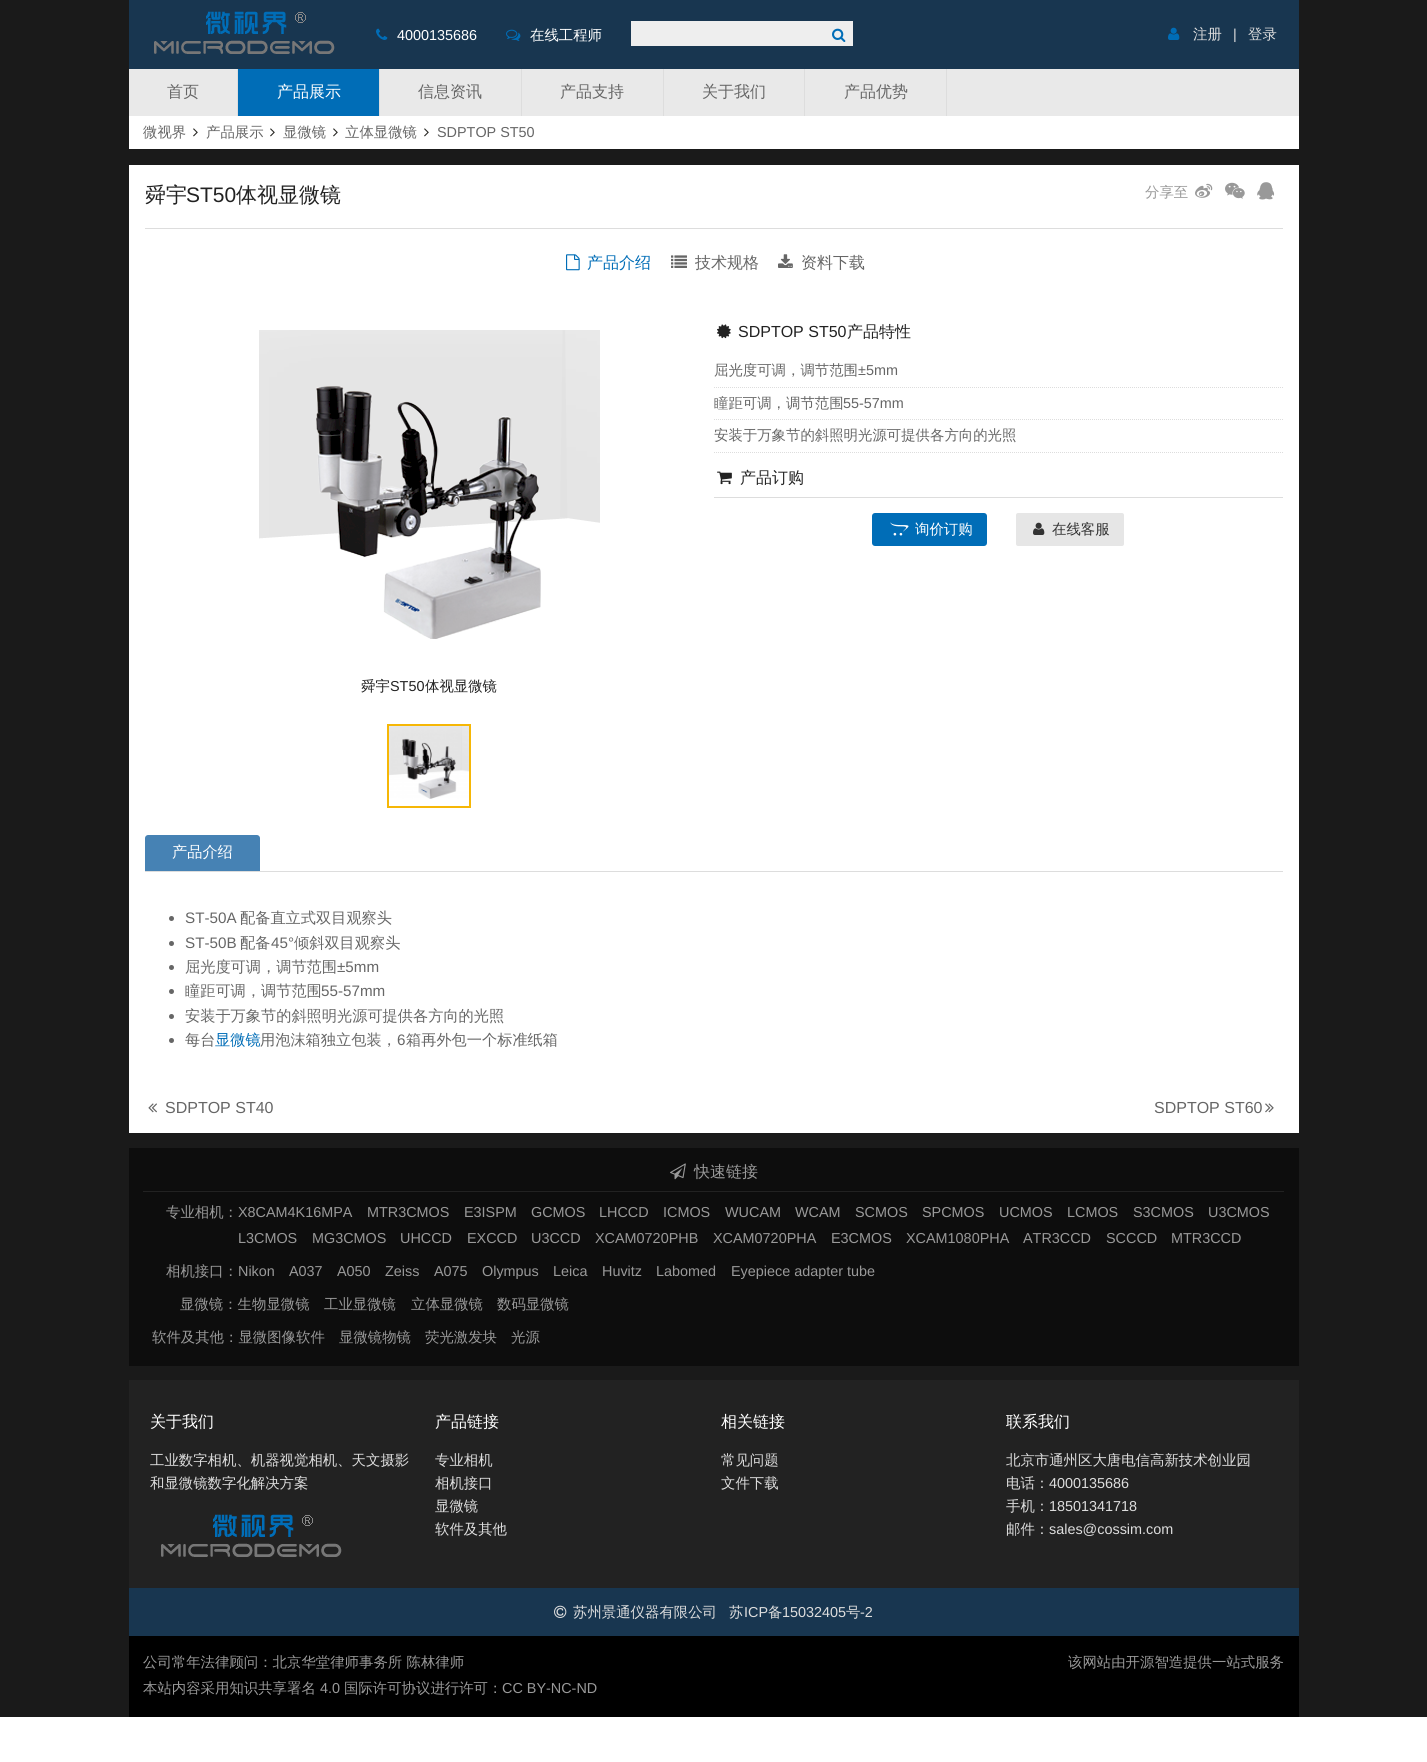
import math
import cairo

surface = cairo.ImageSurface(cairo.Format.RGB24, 1427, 1762)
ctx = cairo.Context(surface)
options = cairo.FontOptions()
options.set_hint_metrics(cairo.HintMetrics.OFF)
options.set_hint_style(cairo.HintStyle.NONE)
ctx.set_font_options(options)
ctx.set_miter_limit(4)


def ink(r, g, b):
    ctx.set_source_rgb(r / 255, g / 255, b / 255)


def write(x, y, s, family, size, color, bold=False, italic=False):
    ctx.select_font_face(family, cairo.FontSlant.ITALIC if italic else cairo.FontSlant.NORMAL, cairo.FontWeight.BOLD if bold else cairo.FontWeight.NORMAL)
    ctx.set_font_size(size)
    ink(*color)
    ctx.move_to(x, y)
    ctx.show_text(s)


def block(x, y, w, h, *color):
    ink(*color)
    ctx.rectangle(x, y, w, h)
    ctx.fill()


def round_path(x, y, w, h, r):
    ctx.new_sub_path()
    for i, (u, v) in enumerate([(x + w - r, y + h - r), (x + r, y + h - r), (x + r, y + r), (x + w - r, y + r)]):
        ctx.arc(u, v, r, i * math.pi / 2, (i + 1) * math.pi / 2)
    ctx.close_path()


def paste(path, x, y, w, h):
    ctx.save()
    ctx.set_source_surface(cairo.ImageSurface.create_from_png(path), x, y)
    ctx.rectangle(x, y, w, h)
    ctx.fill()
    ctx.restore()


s1 = dict(family="Liberation Sans", size=14.4, color=(255, 255, 255))
s2 = dict(family="WenQuanYi Zen Hei Medium", size=14.4, color=(255, 255, 255))
s3 = dict(family="WenQuanYi Zen Hei Medium", size=14.4, color=(221, 221, 221))
s4 = dict(family="Liberation Sans", size=14.4, color=(221, 221, 221))
s5 = dict(family="WenQuanYi Zen Hei Medium", size=16, color=(102, 102, 102))
s6 = dict(family="WenQuanYi Zen Hei Medium", size=16, color=(255, 255, 255))
s7 = dict(family="WenQuanYi Zen Hei Medium", size=14.4, color=(102, 102, 102))
s8 = dict(family="Liberation Sans", size=14.4, color=(102, 102, 102))
s9 = dict(family="WenQuanYi Zen Hei Medium", size=21, color=(34, 34, 34))
s10 = dict(family="Liberation Sans", size=21, color=(34, 34, 34))
s11 = dict(family="WenQuanYi Zen Hei Medium", size=14.4, color=(153, 153, 153))
s12 = dict(family="WenQuanYi Zen Hei Medium", size=16, color=(0, 109, 183))
s13 = dict(family="Liberation Sans", size=16, color=(34, 34, 34))
s14 = dict(family="WenQuanYi Zen Hei Medium", size=16, color=(34, 34, 34))
s15 = dict(family="WenQuanYi Zen Hei Medium", size=14.4, color=(51, 51, 51))
s16 = dict(family="WenQuanYi Zen Hei Medium", size=14.4, color=(34, 34, 34))
s17 = dict(family="Liberation Sans", size=14.4, color=(34, 34, 34))
s18 = dict(family="WenQuanYi Zen Hei Medium", size=15.2, color=(255, 255, 255))
s19 = dict(family="Liberation Sans", size=15.2, color=(102, 102, 102))
s20 = dict(family="WenQuanYi Zen Hei Medium", size=15.2, color=(102, 102, 102))
s21 = dict(family="WenQuanYi Zen Hei Medium", size=15.2, color=(0, 109, 183))
s22 = dict(family="Liberation Sans", size=16, color=(102, 102, 102))
s23 = dict(family="WenQuanYi Zen Hei Medium", size=16, color=(153, 153, 153))
s24 = dict(family="Liberation Sans", size=14.4, color=(153, 153, 153))

ink(255, 255, 255)
ctx.paint()
block(0, 0, 1427, 1717, 26, 26, 26)
block(129, 0, 1170, 69, 24, 54, 80)
paste("pic1.png", 154, 11, 181, 43)
paste("pic2.png", 376, 28, 12, 12)
write(397, 40, "4000135686", **s1)
paste("pic3.png", 506, 29, 15, 12)
write(530, 40, "在线工程师", **s2)
block(631, 21, 222, 25, 238, 238, 238)
paste("pic4.png", 832, 28, 14, 14)
paste("pic5.png", 1168, 27, 12, 13)
write(1193, 39, "注册", **s3)
write(1233, 39, "|", **s4)
write(1248, 39, "登录", **s3)
block(129, 69, 1170, 47, 233, 233, 233)
block(237, 69, 1, 47, 221, 221, 221)
write(167, 97, "首页", **s5)
block(379, 69, 1, 47, 221, 221, 221)
block(238, 69, 141, 47, 0, 109, 183)
write(277, 97, "产品展示", **s6)
block(521, 69, 1, 47, 221, 221, 221)
write(418, 97, "信息资讯", **s5)
block(663, 69, 1, 47, 221, 221, 221)
write(560, 97, "产品支持", **s5)
block(804, 69, 1, 47, 221, 221, 221)
write(702, 97, "关于我们", **s5)
block(946, 69, 1, 47, 221, 221, 221)
write(844, 97, "产品优势", **s5)
block(129, 116, 1170, 33, 255, 255, 255)
write(143, 137, "微视界", **s7)
paste("pic6.png", 193, 128, 5, 9)
write(206, 137, "产品展示", **s7)
paste("pic6.png", 270, 128, 5, 9)
write(283, 137, "显微镜", **s7)
paste("pic6.png", 333, 128, 5, 9)
write(345, 137, "立体显微镜", **s7)
paste("pic6.png", 424, 128, 5, 9)
write(437, 137, "SDPTOP ST50", **s8)
block(129, 165, 1170, 968, 255, 255, 255)
block(145, 228, 1138, 1, 221, 221, 221)
write(145, 202, "舜宇", **s9)
write(186, 202, "ST50", **s10)
write(236, 202, "体视显微镜", **s9)
write(1145, 197, "分享至", **s11)
paste("pic7.png", 1195, 183, 18, 15)
paste("pic8.png", 1225, 182, 20, 17)
paste("pic9.png", 1257, 182, 18, 18)
paste("pic10.png", 566, 254, 14, 17)
write(587, 268, "产品介绍", **s12)
paste("pic11.png", 671, 255, 16, 13)
write(695, 268, "技术规格", **s5)
paste("pic12.png", 778, 254, 15, 14)
write(801, 268, "资料下载", **s5)
paste("pic13.png", 717, 324, 14, 15)
write(738, 337, "SDPTOP ST50", **s13)
write(847, 337, "产品特性", **s14)
ctx.new_path()
ctx.move_to(714, 387.5)
ctx.line_to(1283, 387.5)
ink(221, 221, 221)
ctx.set_line_width(1)
ctx.set_dash([1, 1])
ctx.stroke()
write(714, 375, "屈光度可调，调节范围", **s7)
write(858, 375, "±5mm", **s8)
ctx.new_path()
ctx.move_to(714, 419.5)
ctx.line_to(1283, 419.5)
ink(221, 221, 221)
ctx.stroke()
write(714, 408, "瞳距可调，调节范围", **s7)
write(843, 408, "55-57mm", **s8)
ctx.new_path()
ctx.move_to(714, 452.5)
ctx.line_to(1283, 452.5)
ink(221, 221, 221)
ctx.stroke()
write(714, 440, "安装于万象节的斜照明光源可提供各方向的光照", **s7)
paste("pic14.png", 717, 471, 15, 14)
write(740, 483, "产品订购", **s14)
block(714, 497, 569, 1, 221, 221, 221)
ink(0, 109, 183)
round_path(872, 513, 115, 33, 3)
ctx.fill()
paste("pic15.png", 890, 522, 19, 14)
write(915, 534, "询价订购", **s2)
ink(230, 230, 230)
round_path(1016, 513, 108, 33, 2)
ctx.fill()
paste("pic16.png", 1033, 522, 12, 13)
write(1052, 534, "在线客服", **s15)
paste("pic17.png", 259, 330, 341, 309)
write(361, 691, "舜宇", **s16)
write(390, 691, "ST50", **s17)
write(425, 691, "体视显微镜", **s16)
ctx.rectangle(388, 725, 82, 82)
ink(246, 183, 6)
ctx.set_line_width(2)
ctx.set_dash([])
ctx.stroke()
paste("pic18.png", 389, 726, 80, 73)
block(145, 871, 1138, 1, 221, 221, 221)
ink(70, 130, 180)
ctx.new_path()
ctx.move_to(148, 835)
ctx.line_to(257, 835)
ctx.curve_to(258.5, 835, 260, 836.5, 260, 838)
ctx.line_to(260, 871)
ctx.line_to(145, 871)
ctx.line_to(145, 838)
ctx.curve_to(145, 836.5, 146.5, 835, 148, 835)
ctx.close_path()
ctx.fill()
write(172, 857, "产品介绍", **s18)
ink(102, 102, 102)
ctx.new_path()
ctx.arc(171.5, 918.5, 2.5, 0, 2 * math.pi)
ctx.fill()
write(185, 923, "ST-50A", **s19)
write(240, 923, "配备直立式双目观察头", **s20)
ctx.new_path()
ctx.arc(171.5, 943.5, 2.5, 0, 2 * math.pi)
ctx.fill()
write(185, 948, "ST-50B", **s19)
write(240, 948, "配备", **s20)
write(271, 948, "45°", **s19)
write(294, 948, "倾斜双目观察头", **s20)
ctx.new_path()
ctx.arc(171.5, 967.5, 2.5, 0, 2 * math.pi)
ctx.fill()
write(185, 972, "屈光度可调，调节范围", **s20)
write(337, 972, "±5mm", **s19)
ctx.new_path()
ctx.arc(171.5, 991.5, 2.5, 0, 2 * math.pi)
ctx.fill()
write(185, 996, "瞳距可调，调节范围", **s20)
write(321, 996, "55-57mm", **s19)
ctx.new_path()
ctx.arc(171.5, 1016.5, 2.5, 0, 2 * math.pi)
ctx.fill()
write(185, 1021, "安装于万象节的斜照明光源可提供各方向的光照", **s20)
ctx.new_path()
ctx.arc(171.5, 1040.5, 2.5, 0, 2 * math.pi)
ctx.fill()
write(185, 1045, "每台", **s20)
write(215, 1045, "显微镜", **s21)
write(260, 1045, "用泡沫箱独立包装，", **s20)
write(397, 1045, "6", **s19)
write(406, 1045, "箱再外包一个标准纸箱", **s20)
paste("pic19.png", 148, 1103, 9, 10)
write(165, 1113, "SDPTOP ST40", **s22)
write(1154, 1113, "SDPTOP ST60", **s22)
paste("pic20.png", 1265, 1103, 9, 10)
block(129, 1148, 1170, 218, 13, 13, 13)
block(143, 1191, 1141, 1, 34, 34, 34)
paste("pic21.png", 670, 1163, 16, 17)
write(694, 1177, "快速链接", **s23)
write(166, 1217, "专业相机：", **s11)
write(238, 1217, "X8CAM4K16MPA", **s24)
write(367, 1217, "MTR3CMOS", **s24)
write(464, 1217, "E3ISPM", **s24)
write(531, 1217, "GCMOS", **s24)
write(599, 1217, "LHCCD", **s24)
write(663, 1217, "ICMOS", **s24)
write(725, 1217, "WUCAM", **s24)
write(795, 1217, "WCAM", **s24)
write(855, 1217, "SCMOS", **s24)
write(922, 1217, "SPCMOS", **s24)
write(999, 1217, "UCMOS", **s24)
write(1067, 1217, "LCMOS", **s24)
write(1133, 1217, "S3CMOS", **s24)
write(1208, 1217, "U3CMOS", **s24)
write(238, 1243, "L3CMOS", **s24)
write(312, 1243, "MG3CMOS", **s24)
write(400, 1243, "UHCCD", **s24)
write(467, 1243, "EXCCD", **s24)
write(531, 1243, "U3CCD", **s24)
write(595, 1243, "XCAM0720PHB", **s24)
write(713, 1243, "XCAM0720PHA", **s24)
write(831, 1243, "E3CMOS", **s24)
write(906, 1243, "XCAM1080PHA", **s24)
write(1023, 1243, "ATR3CCD", **s24)
write(1106, 1243, "SCCCD", **s24)
write(1171, 1243, "MTR3CCD", **s24)
write(166, 1276, "相机接口：", **s11)
write(238, 1276, "Nikon", **s24)
write(289, 1276, "A037", **s24)
write(337, 1276, "A050", **s24)
write(385, 1276, "Zeiss", **s24)
write(434, 1276, "A075", **s24)
write(482, 1276, "Olympus", **s24)
write(553, 1276, "Leica", **s24)
write(602, 1276, "Huvitz", **s24)
write(656, 1276, "Labomed", **s24)
write(731, 1276, "Eyepiece adapter tube", **s24)
write(180, 1309, "显微镜：生物显微镜", **s11)
write(324, 1309, "工业显微镜", **s11)
write(411, 1309, "立体显微镜", **s11)
write(497, 1309, "数码显微镜", **s11)
write(152, 1342, "软件及其他：显微图像软件", **s11)
write(339, 1342, "显微镜物镜", **s11)
write(425, 1342, "荧光激发块", **s11)
write(511, 1342, "光源", **s11)
block(129, 1380, 1170, 208, 34, 34, 34)
write(150, 1427, "关于我们", **s6)
write(150, 1465, "工业数字相机、机器视觉相机、天文摄影", **s3)
write(150, 1488, "和显微镜数字化解决方案", **s3)
paste("pic22.png", 161, 1514, 181, 43)
write(435, 1427, "产品链接", **s6)
write(435, 1465, "专业相机", **s3)
write(435, 1488, "相机接口", **s3)
write(435, 1511, "显微镜", **s3)
write(435, 1534, "软件及其他", **s3)
write(721, 1427, "相关链接", **s6)
write(721, 1465, "常见问题", **s3)
write(721, 1488, "文件下载", **s3)
write(1006, 1427, "联系我们", **s6)
write(1006, 1465, "北京市通州区大唐电信高新技术创业园", **s3)
write(1006, 1488, "电话：", **s3)
write(1049, 1488, "4000135686", **s4)
write(1006, 1511, "手机：", **s3)
write(1049, 1511, "18501341718", **s4)
write(1006, 1534, "邮件：", **s3)
write(1049, 1534, "sales@cossim.com", **s4)
block(129, 1588, 1170, 48, 24, 54, 80)
paste("pic23.png", 554, 1605, 13, 13)
write(573, 1617, "苏州景通仪器有限公司", **s3)
write(729, 1617, "苏", **s3)
write(744, 1617, "ICP", **s4)
write(768, 1617, "备", **s3)
write(782, 1617, "15032405", **s4)
write(846, 1617, "号", **s3)
write(860, 1617, "-2", **s4)
block(129, 1636, 1170, 81, 0, 0, 0)
write(143, 1667, "公司常年法律顾问：北京华堂律师事务所 陈林律师", **s11)
write(1068, 1667, "该网站由开源智造提供一站式服务", **s11)
write(143, 1693, "本站内容采用知识共享署名", **s11)
write(320, 1693, "4.0", **s24)
write(344, 1693, "国际许可协议进行许可：", **s11)
write(502, 1693, "CC BY-NC-ND", **s24)
surface.write_to_png("screenshot.png")
